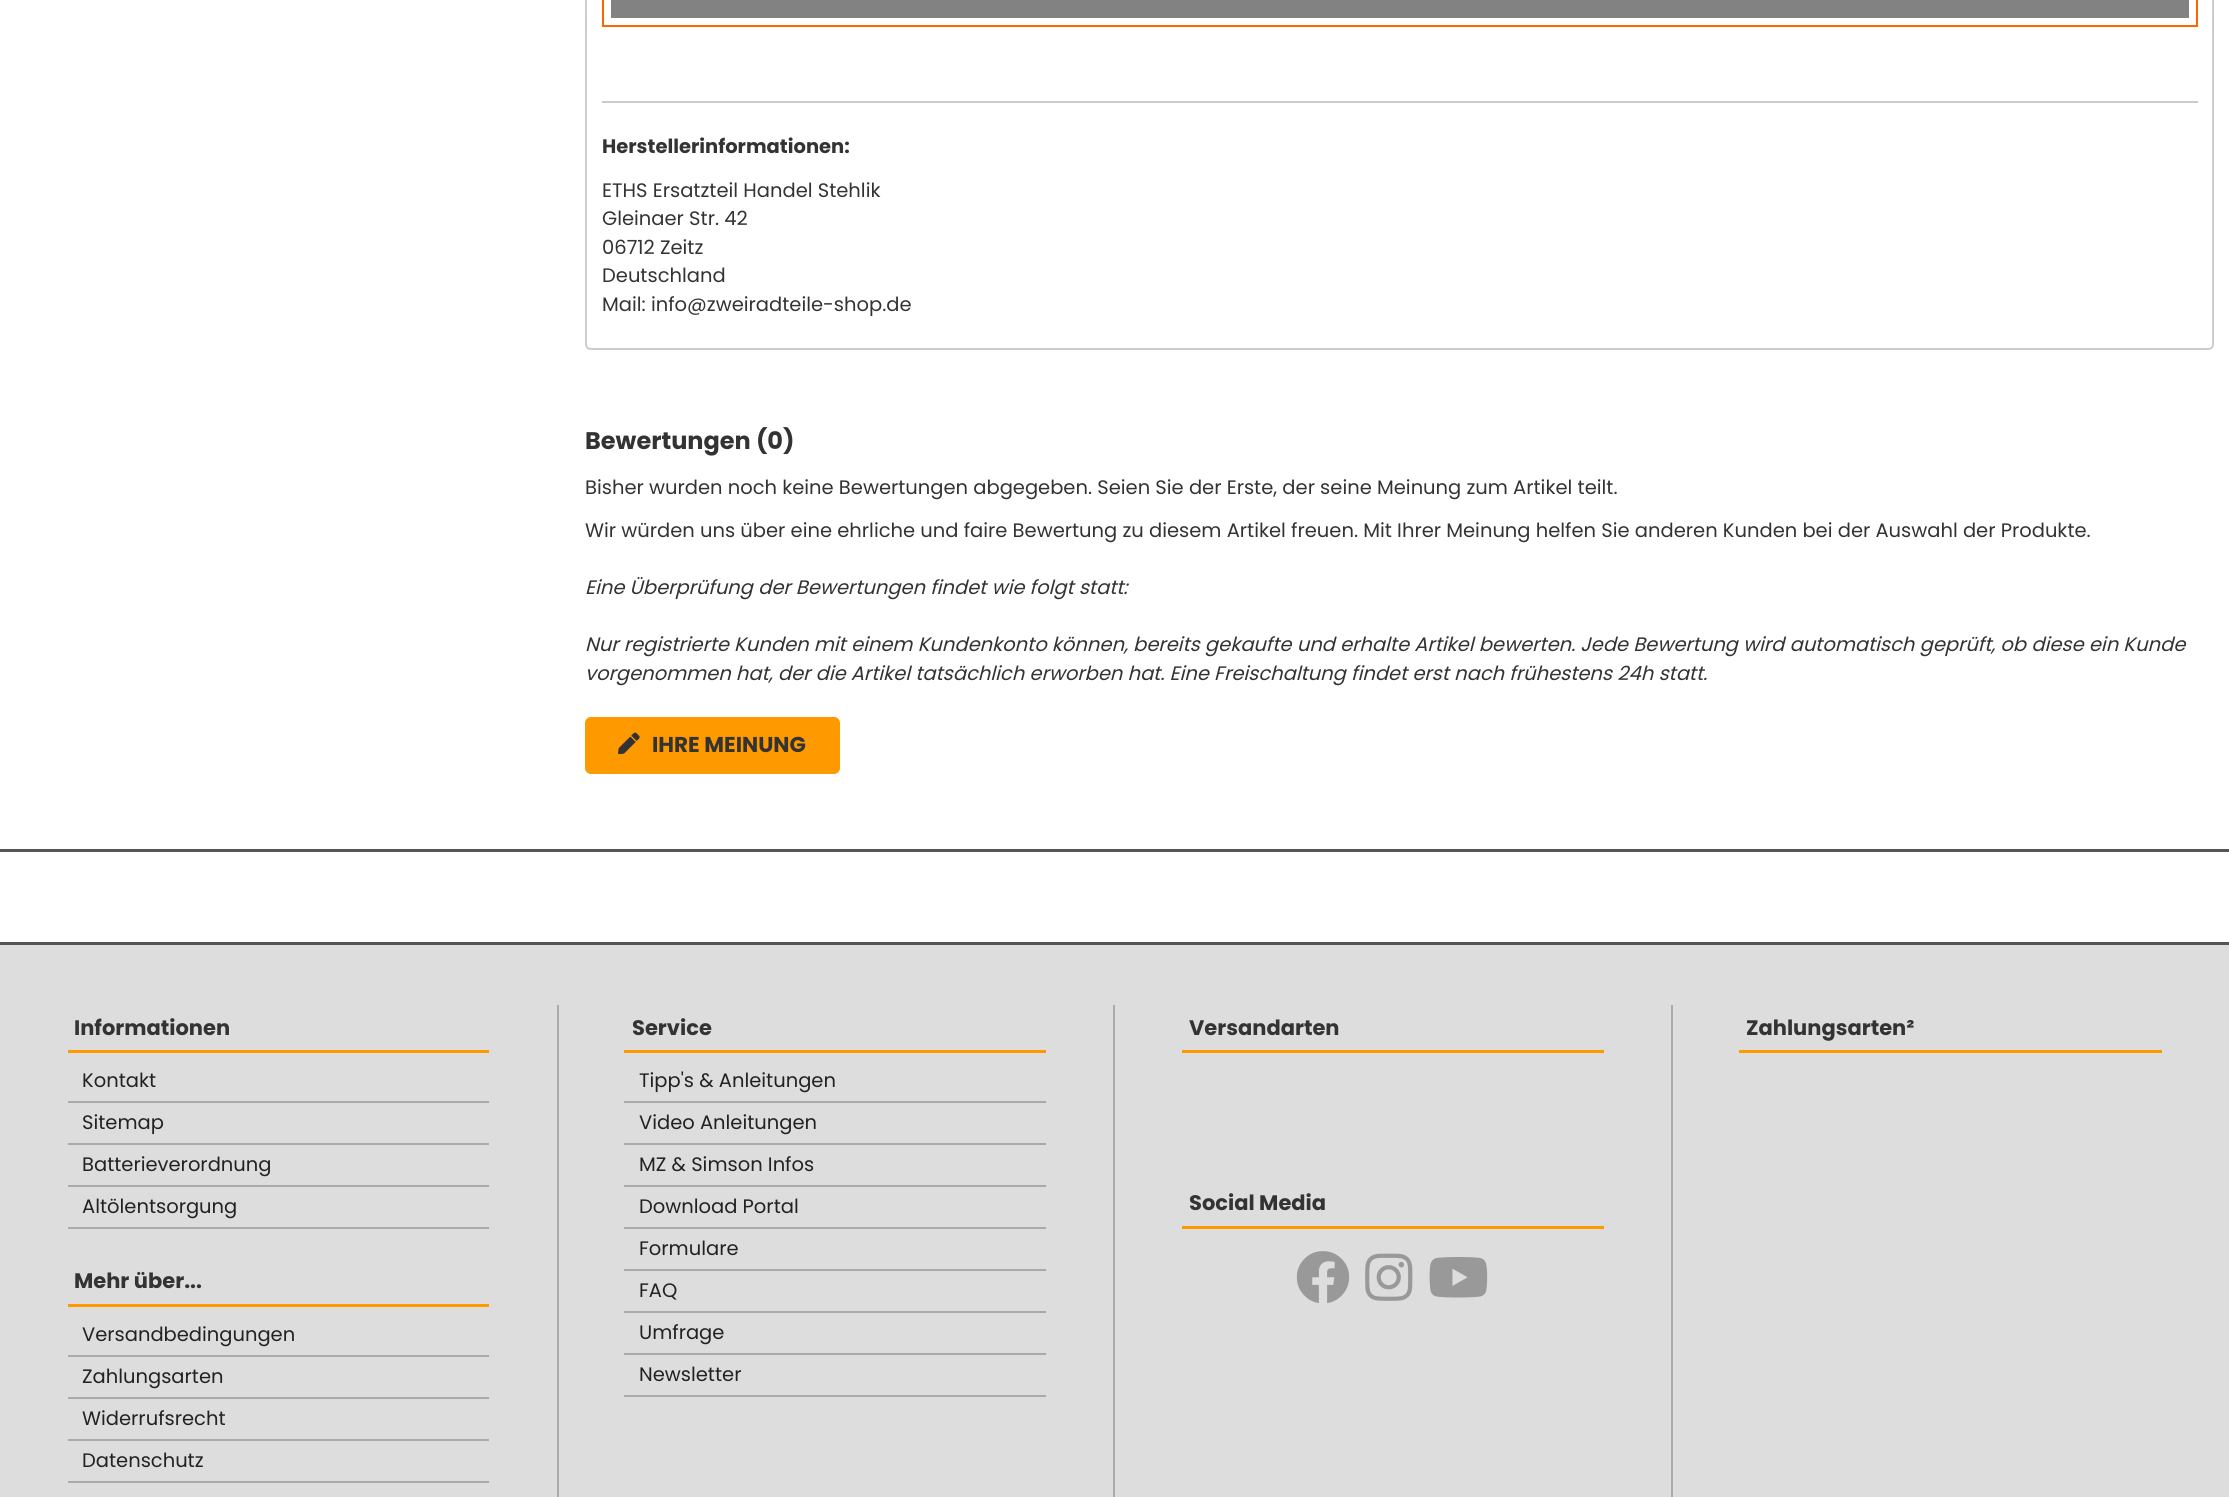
import math
import cairo

surface = cairo.ImageSurface(cairo.Format.RGB24, 2229, 1497)
ctx = cairo.Context(surface)
options = cairo.FontOptions()
options.set_hint_metrics(cairo.HintMetrics.OFF)
options.set_hint_style(cairo.HintStyle.NONE)
ctx.set_font_options(options)
ctx.set_miter_limit(4)


def ink(r, g, b):
    ctx.set_source_rgb(r / 255, g / 255, b / 255)


def write(x, y, s, family, size, color, bold=False, italic=False):
    ctx.select_font_face(family, cairo.FontSlant.ITALIC if italic else cairo.FontSlant.NORMAL, cairo.FontWeight.BOLD if bold else cairo.FontWeight.NORMAL)
    ctx.set_font_size(size)
    ink(*color)
    ctx.move_to(x, y)
    ctx.show_text(s)


def block(x, y, w, h, *color):
    ink(*color)
    ctx.rectangle(x, y, w, h)
    ctx.fill()


def round_path(x, y, w, h, r):
    ctx.new_sub_path()
    for i, (u, v) in enumerate([(x + w - r, y + h - r), (x + r, y + h - r), (x + r, y + r), (x + w - r, y + r)]):
        ctx.arc(u, v, r, i * math.pi / 2, (i + 1) * math.pi / 2)
    ctx.close_path()


def paste(path, x, y, w, h):
    ctx.save()
    ctx.set_source_surface(cairo.ImageSurface.create_from_png(path), x, y)
    ctx.rectangle(x, y, w, h)
    ctx.fill()
    ctx.restore()


s1 = dict(family="Poppins", size=19.5, color=(51, 51, 51), bold=True)
s2 = dict(family="Poppins", size=19.5, color=(51, 51, 51))
s3 = dict(family="Poppins", size=24, color=(51, 51, 51), bold=True)
s4 = dict(family="Poppins", size=19.5, color=(51, 51, 51), italic=True)
s5 = dict(family="Poppins", size=21.5, color=(51, 51, 51), bold=True)
s6 = dict(family="Poppins", size=21, color=(51, 51, 51), bold=True)
s7 = dict(family="Poppins", size=19.5, color=(34, 34, 34))

ink(255, 255, 255)
ctx.paint()
ctx.new_path()
ctx.move_to(586, -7)
ctx.line_to(2213, -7)
ctx.line_to(2213, 344)
ctx.curve_to(2213, 347, 2211, 349, 2208, 349)
ctx.line_to(591, 349)
ctx.curve_to(588, 349, 586, 347, 586, 344)
ctx.close_path()
ink(204, 204, 204)
ctx.stroke()
ctx.rectangle(603, -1, 1594, 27)
ink(255, 102, 0)
ctx.stroke()
block(611, 0, 1578, 18, 130, 130, 130)
block(602, 101, 1596, 2, 204, 204, 204)
write(602, 153, "Herstellerinformationen:", **s1)
write(602, 197, "ETHS Ersatzteil Handel Stehlik", **s2)
write(602, 225, "Gleinaer Str. 42", **s2)
write(602, 254, "06712 Zeitz", **s2)
write(602, 282, "Deutschland", **s2)
write(602, 311, "Mail: info@zweiradteile-shop.de", **s2)
write(585, 449, "Bewertungen (0)", **s3)
write(585, 494, "Bisher wurden noch keine Bewertungen abgegeben. Seien Sie der Erste, der seine Meinung zum Artikel teilt.", **s2)
write(585, 537, "Wir würden uns über eine ehrliche und faire Bewertung zu diesem Artikel freuen. Mit Ihrer Meinung helfen Sie anderen Kunden bei der Auswahl der Produkte.", **s2)
write(585, 594, "Eine Überprüfung der Bewertungen findet wie folgt statt:", **s4)
write(585, 651, "Nur registrierte Kunden mit einem Kundenkonto können, bereits gekaufte und erhalte Artikel bewerten. Jede Bewertung wird automatisch geprüft, ob diese ein Kunde", **s4)
write(585, 680, "vorgenommen hat, der die Artikel tatsächlich erworben hat. Eine Freischaltung findet erst nach frühestens 24h statt.", **s4)
ink(255, 153, 0)
round_path(586, 718, 253, 55, 5)
ctx.fill_preserve()
ctx.stroke()
paste("pic1.png", 618, 732, 22, 23)
write(652, 752, "IHRE MEINUNG", **s5)
block(0, 849, 2229, 3, 85, 85, 85)
block(0, 945, 2229, 552, 221, 221, 221)
block(0, 942, 2229, 3, 85, 85, 85)
block(557, 1005, 2, 492, 170, 170, 170)
block(68, 1050, 421, 3, 255, 153, 0)
write(74, 1035, "Informationen", **s6)
block(68, 1101, 421, 2, 170, 170, 170)
write(82, 1087, "Kontakt", **s7)
block(68, 1143, 421, 2, 170, 170, 170)
write(82, 1129, "Sitemap", **s7)
block(68, 1185, 421, 2, 170, 170, 170)
write(82, 1171, "Batterieverordnung", **s7)
block(68, 1227, 421, 2, 170, 170, 170)
write(82, 1213, "Altölentsorgung", **s7)
block(68, 1304, 421, 3, 255, 153, 0)
write(74, 1288, "Mehr über...", **s6)
block(68, 1355, 421, 2, 170, 170, 170)
write(82, 1341, "Versandbedingungen", **s7)
block(68, 1397, 421, 2, 170, 170, 170)
write(82, 1383, "Zahlungsarten", **s7)
block(68, 1439, 421, 2, 170, 170, 170)
write(82, 1425, "Widerrufsrecht", **s7)
block(68, 1481, 421, 2, 170, 170, 170)
write(82, 1467, "Datenschutz", **s7)
block(1113, 1005, 2, 492, 170, 170, 170)
block(624, 1050, 422, 3, 255, 153, 0)
write(632, 1035, "Service", **s6)
block(624, 1101, 422, 2, 170, 170, 170)
write(639, 1087, "Tipp's & Anleitungen", **s7)
block(624, 1143, 422, 2, 170, 170, 170)
write(639, 1129, "Video Anleitungen", **s7)
block(624, 1185, 422, 2, 170, 170, 170)
write(639, 1171, "MZ & Simson Infos", **s7)
block(624, 1227, 422, 2, 170, 170, 170)
write(639, 1213, "Download Portal", **s7)
block(624, 1269, 422, 2, 170, 170, 170)
write(639, 1255, "Formulare", **s7)
block(624, 1311, 422, 2, 170, 170, 170)
write(639, 1297, "FAQ", **s7)
block(624, 1353, 422, 2, 170, 170, 170)
write(639, 1339, "Umfrage", **s7)
block(624, 1395, 422, 2, 170, 170, 170)
write(639, 1381, "Newsletter", **s7)
block(1671, 1005, 2, 492, 170, 170, 170)
block(1182, 1050, 422, 3, 255, 153, 0)
write(1189, 1035, "Versandarten", **s6)
block(1182, 1226, 422, 3, 255, 153, 0)
write(1189, 1210, "Social Media", **s6)
paste("pic2.png", 1296, 1251, 54, 52)
paste("pic3.png", 1365, 1253, 48, 48)
paste("pic4.png", 1429, 1257, 59, 41)
block(1739, 1050, 423, 3, 255, 153, 0)
write(1746, 1035, "Zahlungsarten²", **s6)
surface.write_to_png("screenshot.png")
